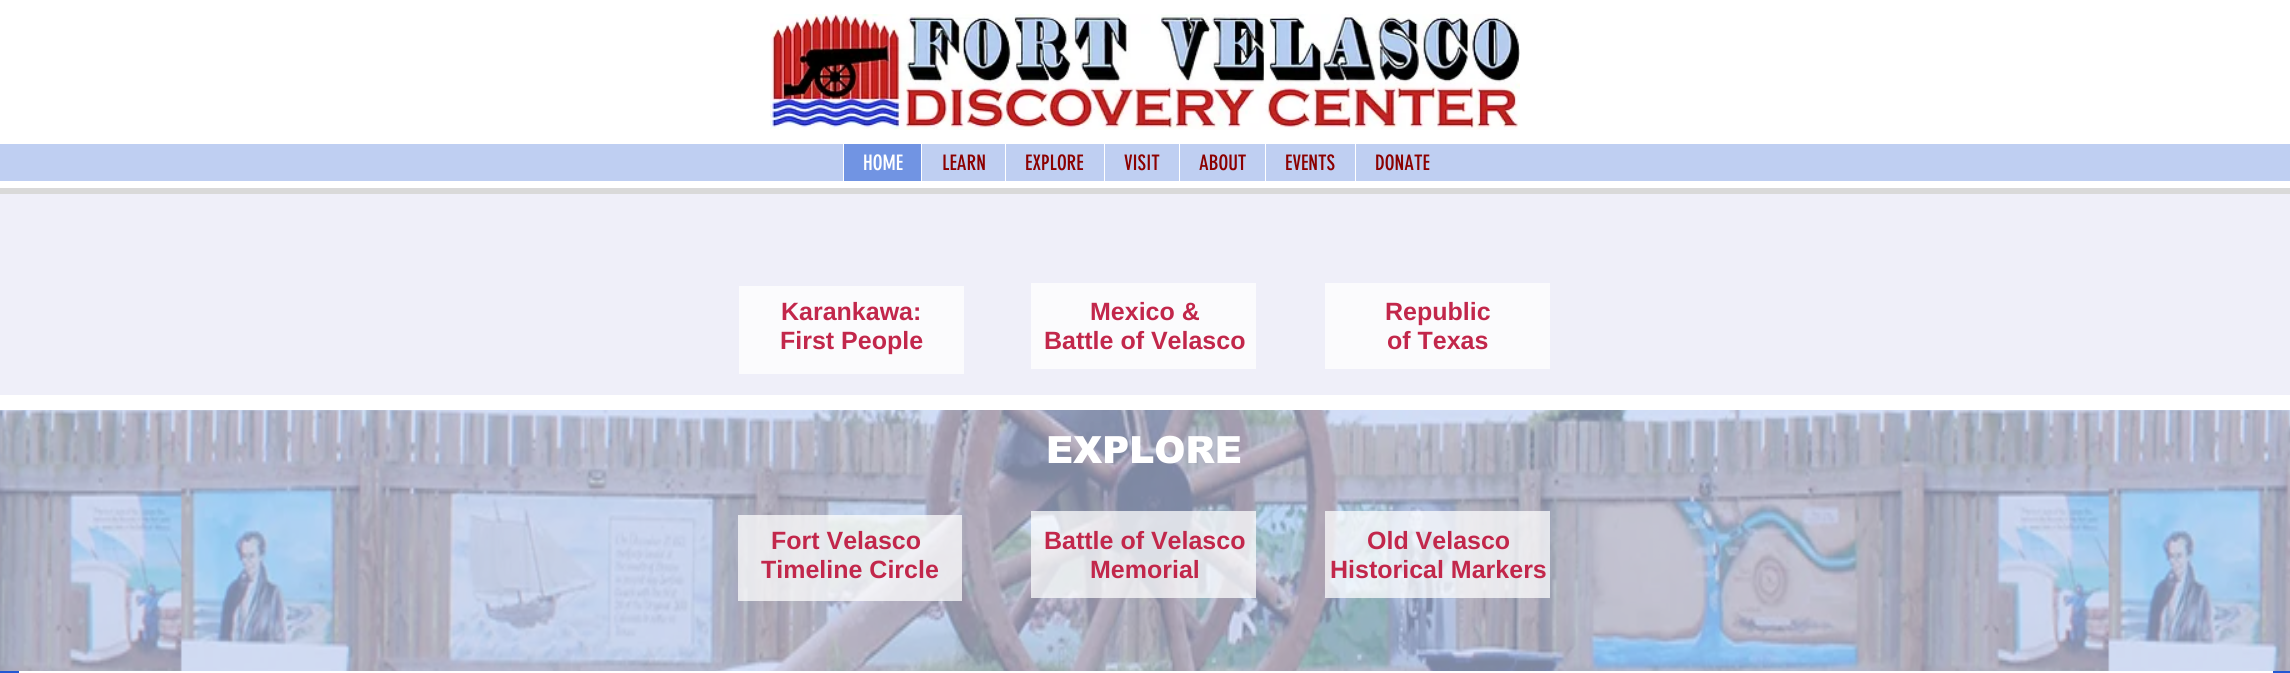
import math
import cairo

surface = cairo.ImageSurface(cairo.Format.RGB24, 2290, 673)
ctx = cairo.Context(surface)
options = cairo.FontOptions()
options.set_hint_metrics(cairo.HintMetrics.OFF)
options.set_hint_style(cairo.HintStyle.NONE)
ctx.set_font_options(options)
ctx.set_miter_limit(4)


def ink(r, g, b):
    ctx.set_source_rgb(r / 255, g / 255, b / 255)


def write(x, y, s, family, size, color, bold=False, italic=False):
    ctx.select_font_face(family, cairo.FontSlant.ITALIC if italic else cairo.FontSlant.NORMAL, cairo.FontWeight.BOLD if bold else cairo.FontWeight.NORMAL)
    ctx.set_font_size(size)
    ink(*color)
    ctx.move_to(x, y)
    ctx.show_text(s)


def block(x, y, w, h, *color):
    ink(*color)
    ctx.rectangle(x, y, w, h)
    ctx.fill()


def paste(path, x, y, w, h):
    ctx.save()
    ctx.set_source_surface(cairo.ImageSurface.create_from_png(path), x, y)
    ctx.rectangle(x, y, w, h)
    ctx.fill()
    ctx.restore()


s1 = dict(family="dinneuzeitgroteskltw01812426", size=21, color=(255, 255, 255))
s2 = dict(family="dinneuzeitgroteskltw01812426", size=21, color=(139, 0, 0))
s3 = dict(family="Liberation Sans", size=25, color=(194, 39, 75), bold=True)
s4 = dict(family="arial Black", size=37.5, color=(255, 255, 255))

ink(255, 255, 255)
ctx.paint()
paste("pic1.png", 770, 14, 750, 116)
block(0, 144, 2290, 37, 191, 207, 242)
block(844, 144, 77, 37, 113, 148, 227)
block(843, 144, 1, 37, 255, 255, 255)
write(863, 170, "HOME", **s1)
block(921, 144, 1, 37, 255, 255, 255)
write(942, 170, "LEARN", **s2)
block(1005, 144, 1, 37, 255, 255, 255)
write(1025, 170, "EXPLORE", **s2)
block(1104, 144, 1, 37, 255, 255, 255)
write(1124, 170, "VISIT", **s2)
block(1179, 144, 1, 37, 255, 255, 255)
write(1199, 170, "ABOUT", **s2)
block(1265, 144, 1, 37, 255, 255, 255)
write(1285, 170, "EVENTS", **s2)
block(1355, 144, 1, 37, 255, 255, 255)
write(1375, 170, "DONATE", **s2)
block(0, 188, 2290, 6, 217, 217, 217)
block(0, 194, 2290, 201, 239, 239, 249)
block(739, 286, 225, 88, 251, 251, 253)
block(1031, 283, 225, 86, 251, 251, 253)
block(1325, 283, 225, 86, 251, 251, 253)
write(781, 320, "Karankawa:", **s3)
write(780, 349, "First People", **s3)
write(1090, 320, "Mexico &", **s3)
write(1044, 349, "Battle of Velasco", **s3)
write(1385, 320, "Republic", **s3)
write(1387, 349, "of Texas", **s3)
block(0, 410, 2290, 261, 192, 207, 243)
paste("pic2.png", 0, 410, 2290, 261)
write(1046, 463, "EXPLORE", **s4)
ctx.set_source_rgba(1, 1, 1, 0.73)
ctx.rectangle(738, 515, 224, 86)
ctx.fill()
ctx.rectangle(1031, 511, 225, 87)
ctx.fill()
ctx.rectangle(1325, 511, 225, 87)
ctx.fill()
write(771, 549, "Fort Velasco", **s3)
write(761, 578, "Timeline Circle", **s3)
write(1044, 549, "Battle of Velasco", **s3)
write(1090, 578, "Memorial", **s3)
write(1367, 549, "Old Velasco", **s3)
write(1330, 578, "Historical Markers", **s3)
block(0, 671, 2290, 2, 35, 88, 211)
block(19, 671, 2254, 2, 255, 255, 255)
surface.write_to_png("screenshot.png")
